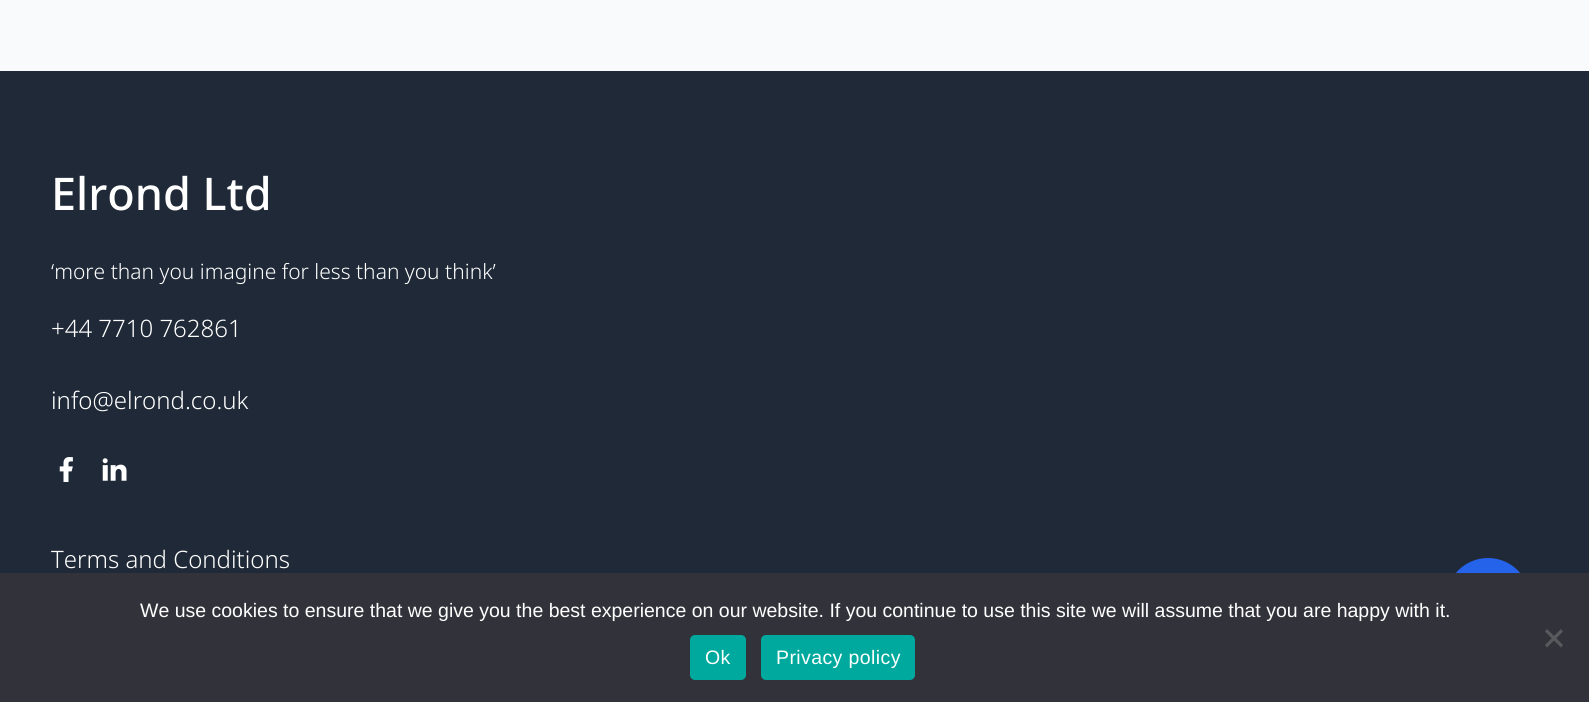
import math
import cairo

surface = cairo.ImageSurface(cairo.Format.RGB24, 1589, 702)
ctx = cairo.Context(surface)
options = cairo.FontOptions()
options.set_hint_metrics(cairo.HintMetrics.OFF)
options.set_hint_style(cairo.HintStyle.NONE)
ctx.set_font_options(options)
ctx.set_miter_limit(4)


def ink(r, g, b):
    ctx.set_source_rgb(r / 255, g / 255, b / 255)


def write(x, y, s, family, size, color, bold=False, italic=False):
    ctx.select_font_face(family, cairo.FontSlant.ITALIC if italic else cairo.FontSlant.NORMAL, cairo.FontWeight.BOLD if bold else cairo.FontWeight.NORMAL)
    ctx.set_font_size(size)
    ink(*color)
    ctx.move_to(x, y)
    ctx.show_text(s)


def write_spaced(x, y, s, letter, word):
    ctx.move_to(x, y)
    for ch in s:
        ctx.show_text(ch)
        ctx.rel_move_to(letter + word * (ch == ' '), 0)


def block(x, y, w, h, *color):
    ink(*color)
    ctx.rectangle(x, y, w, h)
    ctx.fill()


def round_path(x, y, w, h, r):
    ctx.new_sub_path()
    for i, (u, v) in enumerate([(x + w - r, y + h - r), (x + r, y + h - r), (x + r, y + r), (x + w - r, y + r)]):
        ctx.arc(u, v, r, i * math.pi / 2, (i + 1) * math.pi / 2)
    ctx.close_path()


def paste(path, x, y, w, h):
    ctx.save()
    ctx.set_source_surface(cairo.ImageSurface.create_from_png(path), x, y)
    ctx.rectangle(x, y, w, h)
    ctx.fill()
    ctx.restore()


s1 = dict(family="Noto Sans Medium", size=45, color=(255, 255, 255))
s2 = dict(family="Noto Sans Light", size=21, color=(255, 255, 255))
s3 = dict(family="Noto Sans Light", size=24, color=(255, 255, 255))
s4 = dict(family="Liberation Sans", size=19.5, color=(255, 255, 255))

ink(249, 250, 251)
ctx.paint()
block(0, 71, 1589, 502, 31, 41, 55)
write(51, 210, "Elrond Ltd", **s1)
write(51, 279, "‘more than you imagine for less than you think’", **s2)
write(51, 337, "+44 7710 762861", **s3)
write(51, 409, "info@elrond.co.uk", **s3)
paste("pic1.png", 59, 457, 14, 25)
paste("pic2.png", 102, 458, 25, 23)
write(51, 568, "Terms and Conditions", **s3)
ink(37, 99, 235)
ctx.new_path()
ctx.arc(1488, 600, 42, 0, 2 * math.pi)
ctx.fill()
block(0, 573, 1589, 129, 50, 50, 58)
write(140, 617, "We use cookies to ensure that we give you the best experience on our website. If you continue to use this site we will assume that you are happy with it.", **s4)
ink(89, 89, 93)
ctx.new_path()
ctx.move_to(1561, 629)
ctx.line_to(1563, 631.5)
ctx.line_to(1547, 647.5)
ctx.line_to(1545, 645)
ctx.close_path()
ctx.fill()
ctx.new_path()
ctx.move_to(1545, 631.5)
ctx.line_to(1547, 629)
ctx.line_to(1563, 645)
ctx.line_to(1561, 647.5)
ctx.close_path()
ctx.fill()
ink(0, 169, 157)
round_path(690, 635, 56, 45, 5)
ctx.fill()
ink(255, 255, 255)
write_spaced(705, 664, "Ok", 0.4, 0)
ink(0, 169, 157)
round_path(761, 635, 154, 45, 5)
ctx.fill()
ink(255, 255, 255)
write_spaced(776, 664, "Privacy policy", 0.4, 0)
surface.write_to_png("screenshot.png")
